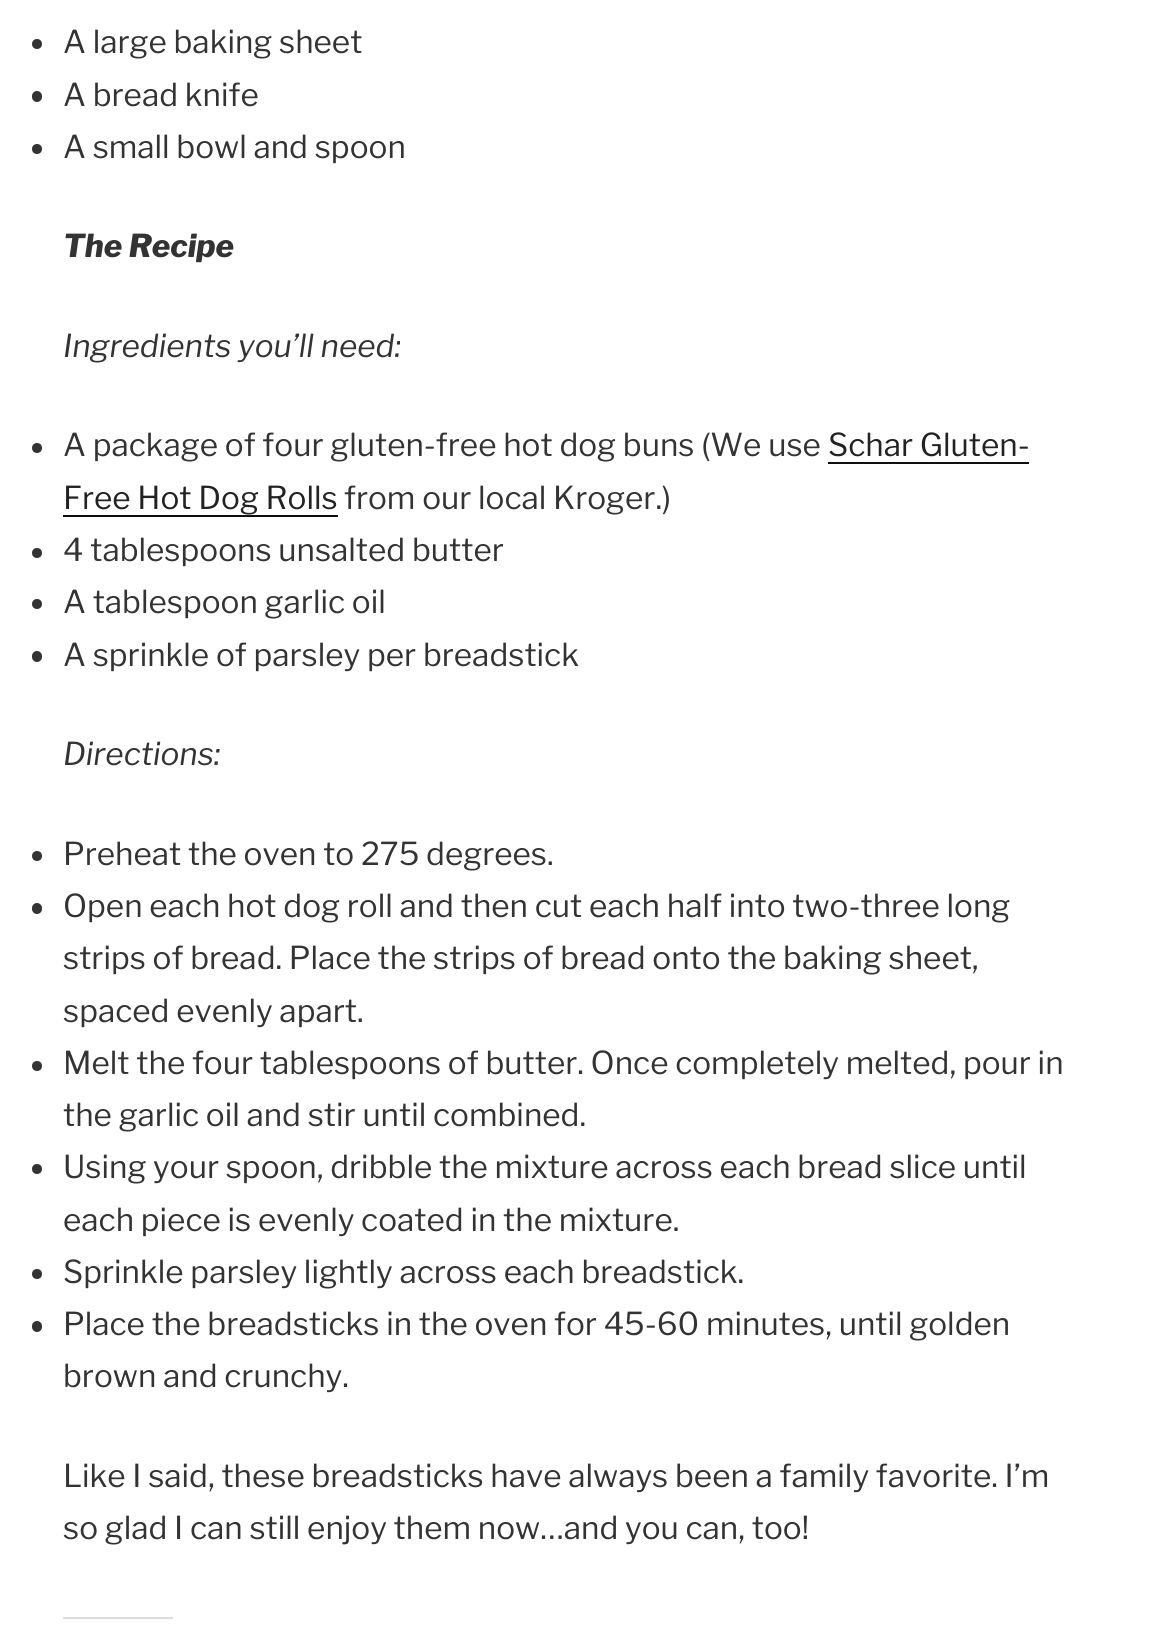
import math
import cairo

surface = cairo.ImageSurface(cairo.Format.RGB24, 1151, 1649)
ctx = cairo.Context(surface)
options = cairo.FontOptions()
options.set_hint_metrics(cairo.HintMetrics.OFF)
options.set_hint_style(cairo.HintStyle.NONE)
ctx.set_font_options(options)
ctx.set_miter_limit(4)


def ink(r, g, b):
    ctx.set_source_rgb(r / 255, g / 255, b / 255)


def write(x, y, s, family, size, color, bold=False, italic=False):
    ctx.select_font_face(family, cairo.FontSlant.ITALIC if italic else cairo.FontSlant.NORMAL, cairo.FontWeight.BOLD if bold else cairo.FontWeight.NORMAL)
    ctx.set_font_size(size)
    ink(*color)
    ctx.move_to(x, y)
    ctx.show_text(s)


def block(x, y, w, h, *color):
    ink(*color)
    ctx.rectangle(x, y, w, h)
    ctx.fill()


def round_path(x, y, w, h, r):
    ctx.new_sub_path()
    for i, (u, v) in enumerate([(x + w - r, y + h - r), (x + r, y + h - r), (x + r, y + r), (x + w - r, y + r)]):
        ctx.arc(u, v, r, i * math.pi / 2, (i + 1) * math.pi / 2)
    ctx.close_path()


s1 = dict(family="Libre Franklin Thin", size=31.5, color=(51, 51, 51))
s2 = dict(family="Libre Franklin Thin", size=31.5, color=(51, 51, 51), italic=True)
s3 = dict(family="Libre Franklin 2 Thin", size=31.5, color=(51, 51, 51), italic=True)
s4 = dict(family="Libre Franklin Thin", size=31.5, color=(34, 34, 34))

ink(255, 255, 255)
ctx.paint()
ink(51, 51, 51)
ctx.arc(37, 44, 5, 0, 2 * math.pi)
ctx.fill()
write(63, 53, "A large baking sheet", **s1)
round_path(32, 91, 10, 11, 5)
ctx.fill()
write(63, 106, "A bread knife", **s1)
ctx.new_path()
ctx.arc(37, 149, 5, 0, 2 * math.pi)
ctx.fill()
write(63, 158, "A small bowl and spoon", **s1)
write(63, 257, "The Recipe", **s2)
write(63, 357, "Ingredients you’ll need:", **s3)
ctx.new_path()
ctx.arc(37, 448, 5, 0, 2 * math.pi)
ctx.fill()
write(63, 456, "A package of four gluten-free hot dog buns (We use", **s1)
write(828, 456, "Schar Gluten-", **s4)
block(828, 462, 201, 2, 15, 15, 15)
write(63, 509, "Free Hot Dog Rolls", **s4)
block(63, 515, 275, 2, 15, 15, 15)
write(344, 509, "from our local Kroger.)", **s1)
ctx.new_path()
ctx.arc(37, 553, 5, 0, 2 * math.pi)
ctx.fill()
write(63, 561, "4 tablespoons unsalted butter", **s1)
ctx.new_path()
ctx.arc(37, 604, 5, 0, 2 * math.pi)
ctx.fill()
write(63, 613, "A tablespoon garlic oil", **s1)
round_path(32, 651, 10, 11, 5)
ctx.fill()
write(63, 666, "A sprinkle of parsley per breadstick", **s1)
write(63, 765, "Directions:", **s3)
ctx.new_path()
ctx.arc(37, 856, 5, 0, 2 * math.pi)
ctx.fill()
write(63, 865, "Preheat the oven to 275 degrees.", **s1)
round_path(32, 903, 10, 11, 5)
ctx.fill()
write(63, 917, "Open each hot dog roll and then cut each half into two-three long", **s1)
write(63, 969, "strips of bread. Place the strips of bread onto the baking sheet,", **s1)
write(63, 1022, "spaced evenly apart.", **s1)
ctx.new_path()
ctx.arc(37, 1066, 5, 0, 2 * math.pi)
ctx.fill()
write(63, 1074, "Melt the four tablespoons of butter. Once completely melted, pour in", **s1)
write(63, 1126, "the garlic oil and stir until combined.", **s1)
ctx.new_path()
ctx.arc(37, 1169, 5, 0, 2 * math.pi)
ctx.fill()
write(63, 1178, "Using your spoon, dribble the mixture across each bread slice until", **s1)
write(63, 1231, "each piece is evenly coated in the mixture.", **s1)
ctx.new_path()
ctx.arc(37, 1274, 5, 0, 2 * math.pi)
ctx.fill()
write(63, 1283, "Sprinkle parsley lightly across each breadstick.", **s1)
round_path(32, 1321, 10, 11, 5)
ctx.fill()
write(63, 1335, "Place the breadsticks in the oven for 45-60 minutes, until golden", **s1)
write(63, 1387, "brown and crunchy.", **s1)
write(63, 1487, "Like I said, these breadsticks have always been a family favorite. I’m", **s1)
write(63, 1539, "so glad I can still enjoy them now…and you can, too!", **s1)
block(63, 1617, 110, 2, 220, 220, 222)
surface.write_to_png("screenshot.png")
